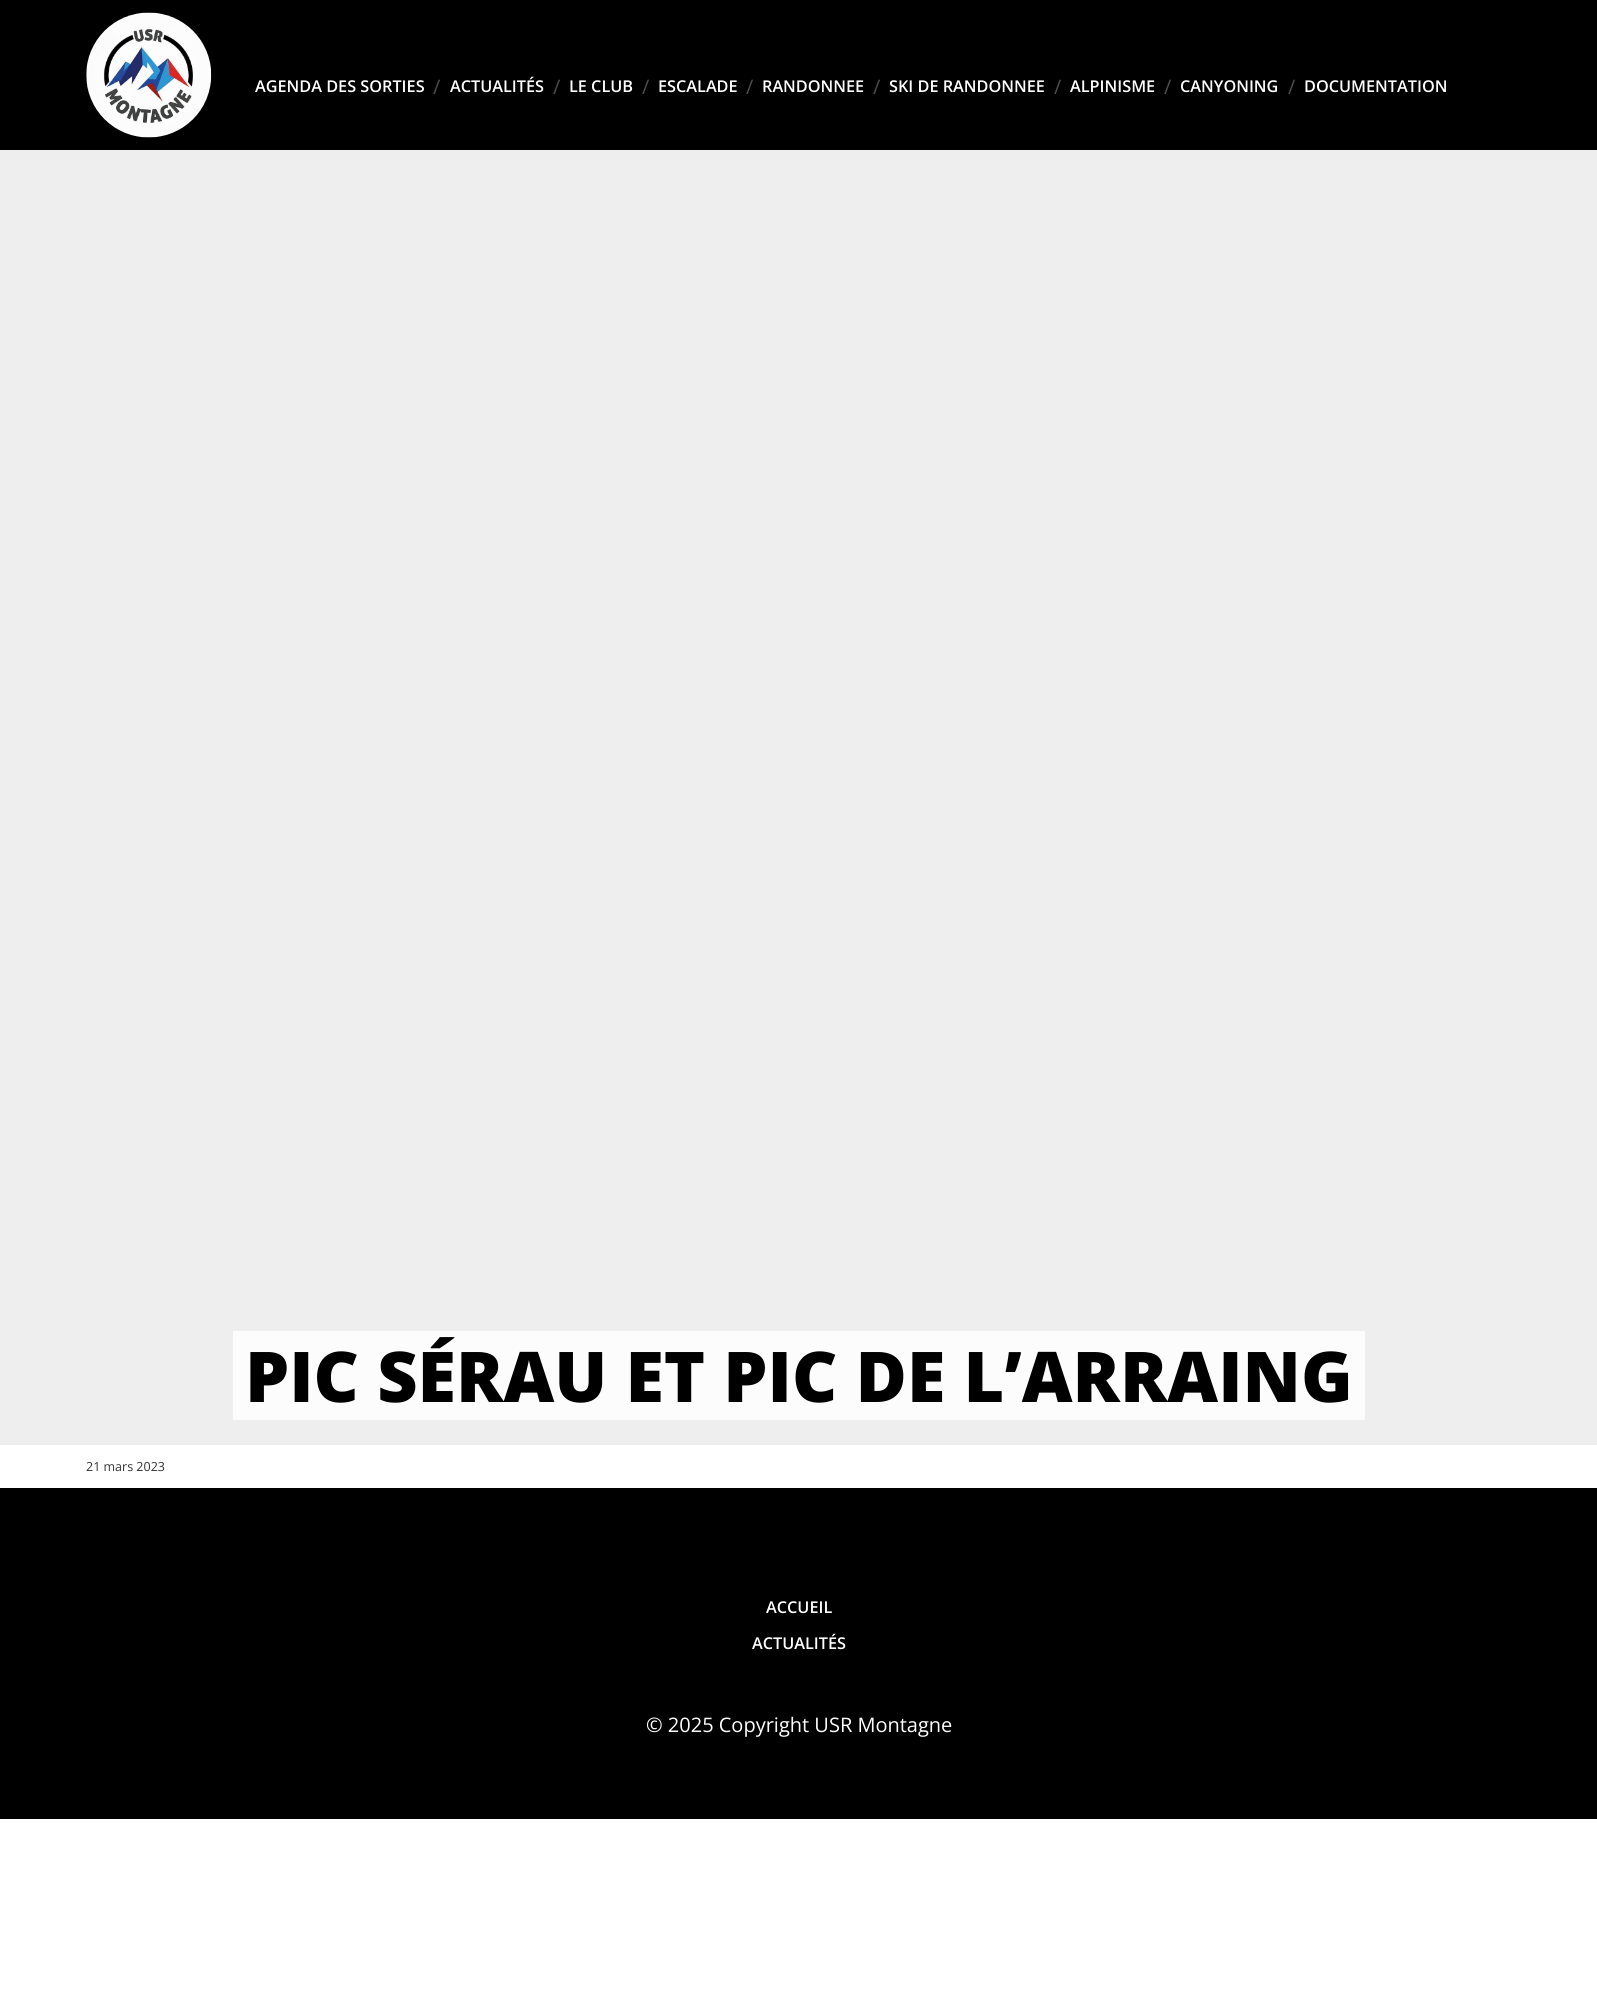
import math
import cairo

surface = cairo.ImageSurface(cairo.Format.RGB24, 1597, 1992)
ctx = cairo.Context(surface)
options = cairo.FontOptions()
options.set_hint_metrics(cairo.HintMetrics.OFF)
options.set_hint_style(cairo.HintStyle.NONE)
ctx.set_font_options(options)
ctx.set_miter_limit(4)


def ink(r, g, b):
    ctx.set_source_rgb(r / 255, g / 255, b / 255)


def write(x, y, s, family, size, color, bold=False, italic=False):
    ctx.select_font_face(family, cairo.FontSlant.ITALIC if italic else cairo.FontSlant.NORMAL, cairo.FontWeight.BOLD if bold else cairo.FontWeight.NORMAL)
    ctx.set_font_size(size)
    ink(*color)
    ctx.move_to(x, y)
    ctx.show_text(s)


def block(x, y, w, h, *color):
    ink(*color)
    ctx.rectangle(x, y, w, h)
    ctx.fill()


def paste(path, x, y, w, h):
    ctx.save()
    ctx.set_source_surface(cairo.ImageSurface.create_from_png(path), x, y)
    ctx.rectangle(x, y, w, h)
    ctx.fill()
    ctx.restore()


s1 = dict(family="Open Sans SemiBold", size=16.25, color=(255, 255, 255))
s2 = dict(family="Open Sans", size=20, color=(77, 77, 77))
s3 = dict(family="Open Sans ExtraBold", size=70, color=(0, 0, 0))
s4 = dict(family="Open Sans", size=12.5, color=(51, 51, 51))
s5 = dict(family="Open Sans", size=20, color=(255, 255, 255))

ink(255, 255, 255)
ctx.paint()
block(0, 0, 1597, 150, 0, 0, 0)
paste("pic1.png", 86, 12, 126, 126)
write(255, 92, "AGENDA DES SORTIES", **s1)
write(433, 94, "/", **s2)
write(450, 92, "ACTUALITÉS", **s1)
write(553, 94, "/", **s2)
write(569, 92, "LE CLUB", **s1)
write(642, 94, "/", **s2)
write(658, 92, "ESCALADE", **s1)
write(746, 94, "/", **s2)
write(762, 92, "RANDONNEE", **s1)
write(873, 94, "/", **s2)
write(889, 92, "SKI DE RANDONNEE", **s1)
write(1054, 94, "/", **s2)
write(1070, 92, "ALPINISME", **s1)
write(1164, 94, "/", **s2)
write(1180, 92, "CANYONING", **s1)
write(1288, 94, "/", **s2)
write(1304, 92, "DOCUMENTATION", **s1)
block(0, 150, 1597, 1295, 238, 238, 238)
block(233, 1331, 1132, 89, 252, 252, 252)
write(245, 1402, "PIC SÉRAU ET PIC DE L’ARRAING", **s3)
write(86, 1471, "21 mars 2023", **s4)
block(0, 1488, 1597, 331, 0, 0, 0)
write(766, 1613, "ACCUEIL", **s1)
write(752, 1649, "ACTUALITÉS", **s1)
write(646, 1732, "© 2025 Copyright USR Montagne", **s5)
surface.write_to_png("screenshot.png")
